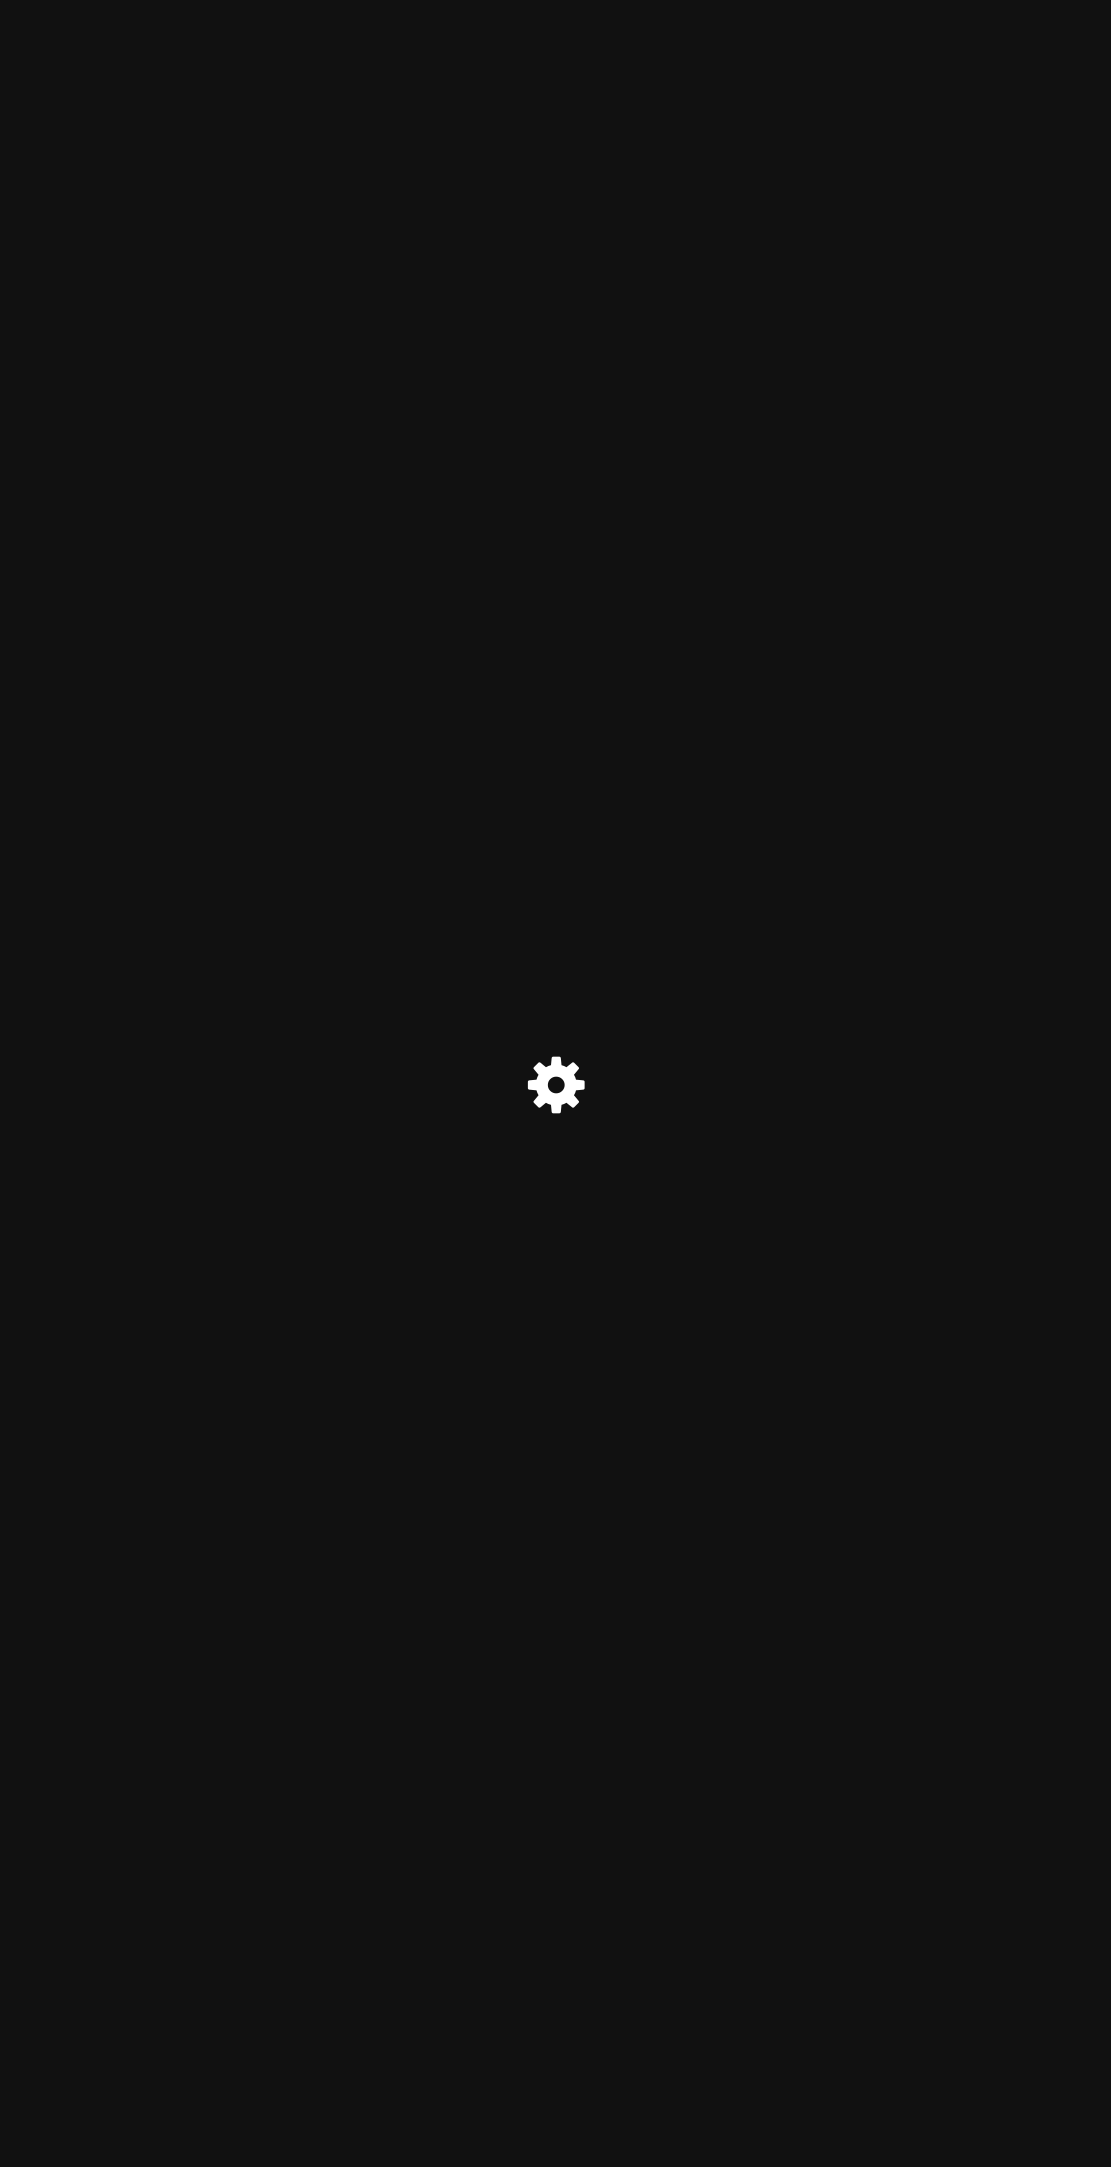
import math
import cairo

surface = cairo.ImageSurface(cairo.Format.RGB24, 1111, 2167)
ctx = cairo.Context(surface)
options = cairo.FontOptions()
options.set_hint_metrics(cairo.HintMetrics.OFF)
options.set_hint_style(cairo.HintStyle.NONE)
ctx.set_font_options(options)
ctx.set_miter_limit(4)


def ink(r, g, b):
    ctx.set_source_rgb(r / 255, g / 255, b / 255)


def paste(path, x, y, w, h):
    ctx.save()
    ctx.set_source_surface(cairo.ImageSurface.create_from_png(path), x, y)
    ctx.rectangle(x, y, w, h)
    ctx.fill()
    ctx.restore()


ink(17, 17, 17)
ctx.paint()
paste("pic1.png", 527, 1056, 58, 58)
surface.write_to_png("screenshot.png")
